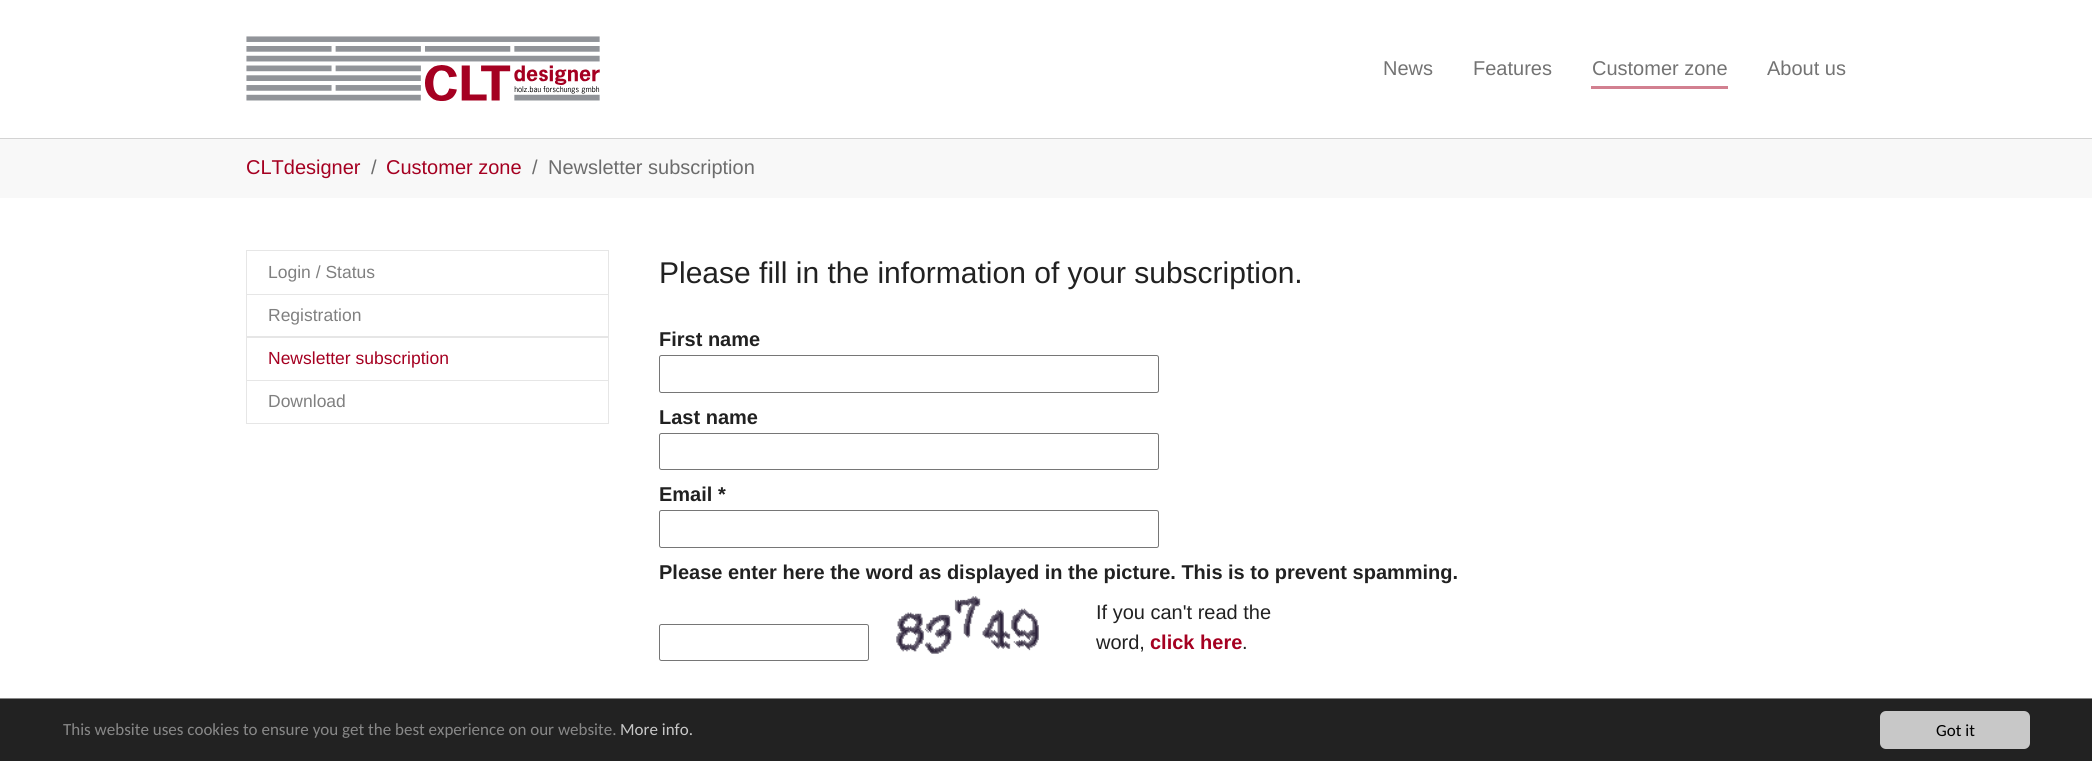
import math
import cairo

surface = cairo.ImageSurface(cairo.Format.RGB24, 2092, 761)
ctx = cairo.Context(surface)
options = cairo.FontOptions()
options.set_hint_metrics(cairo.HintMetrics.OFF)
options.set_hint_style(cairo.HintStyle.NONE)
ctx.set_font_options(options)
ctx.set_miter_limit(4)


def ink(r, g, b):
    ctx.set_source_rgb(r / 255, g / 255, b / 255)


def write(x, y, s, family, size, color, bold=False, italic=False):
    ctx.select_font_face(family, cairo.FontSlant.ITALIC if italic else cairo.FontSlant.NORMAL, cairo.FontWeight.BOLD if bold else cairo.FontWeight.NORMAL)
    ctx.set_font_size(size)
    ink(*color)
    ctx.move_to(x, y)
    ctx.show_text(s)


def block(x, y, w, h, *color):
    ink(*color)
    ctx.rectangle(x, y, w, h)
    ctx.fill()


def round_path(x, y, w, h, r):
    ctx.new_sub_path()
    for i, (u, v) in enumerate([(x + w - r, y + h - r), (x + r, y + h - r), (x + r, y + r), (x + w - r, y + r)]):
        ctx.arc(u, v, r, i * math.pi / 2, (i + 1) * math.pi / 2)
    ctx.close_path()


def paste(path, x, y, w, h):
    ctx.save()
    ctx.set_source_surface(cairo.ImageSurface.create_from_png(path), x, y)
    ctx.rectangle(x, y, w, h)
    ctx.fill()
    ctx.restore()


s1 = dict(family="Liberation Sans", size=20, color=(115, 115, 115))
s2 = dict(family="Liberation Sans", size=20, color=(165, 0, 33))
s3 = dict(family="Liberation Sans", size=20, color=(108, 108, 108))
s4 = dict(family="Liberation Sans", size=17.5, color=(128, 128, 128))
s5 = dict(family="Liberation Sans", size=17.5, color=(165, 0, 33))
s6 = dict(family="Liberation Sans", size=30, color=(33, 33, 33))
s7 = dict(family="Liberation Sans", size=20, color=(33, 33, 33), bold=True)
s8 = dict(family="Liberation Sans", size=20, color=(33, 33, 33))
s9 = dict(family="Liberation Sans", size=20, color=(165, 0, 33), bold=True)
s10 = dict(family="Carlito", size=17, color=(136, 136, 136))
s11 = dict(family="Carlito", size=17, color=(200, 200, 200))
s12 = dict(family="Carlito", size=17, color=(0, 0, 0))

ink(255, 255, 255)
ctx.paint()
ink(211, 211, 211)
ctx.new_path()
ctx.move_to(0, 138)
ctx.line_to(0, 139)
ctx.line_to(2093, 139)
ctx.line_to(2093, 1)
ctx.line_to(2092, 1)
ctx.line_to(2092, 138)
ctx.close_path()
ctx.fill()
paste("pic1.png", 246, 36, 354, 65)
write(1383, 75, "News", **s1)
write(1473, 75, "Features", **s1)
write(1592, 75, "Customer zone", **s1)
block(1591, 86, 137, 3, 210, 128, 144)
write(1767, 75, "About us", **s1)
block(0, 139, 2092, 59, 248, 248, 248)
write(246, 174, "CLTdesigner", **s2)
write(371, 174, "/", **s3)
write(386, 174, "Customer zone", **s2)
write(532, 174, "/", **s3)
write(548, 174, "Newsletter subscription", **s3)
ctx.rectangle(246.5, 250.5, 362, 44)
ink(230, 230, 230)
ctx.set_line_width(1)
ctx.stroke()
write(268, 278, "Login / Status", **s4)
ctx.rectangle(246.5, 294.5, 362, 43)
ink(230, 230, 230)
ctx.stroke()
write(268, 321, "Registration", **s4)
ctx.rectangle(246.5, 336.5, 362, 44)
ink(230, 230, 230)
ctx.stroke()
write(268, 364, "Newsletter subscription", **s5)
ctx.rectangle(246.5, 380.5, 362, 43)
ink(230, 230, 230)
ctx.stroke()
write(268, 407, "Download", **s4)
write(659, 283, "Please fill in the information of your subscription.", **s6)
write(659, 346, "First name", **s7)
round_path(659.5, 355.5, 499, 37, 2)
ink(118, 118, 118)
ctx.stroke()
write(659, 424, "Last name", **s7)
round_path(659.5, 433.5, 499, 36, 2)
ink(118, 118, 118)
ctx.stroke()
write(659, 501, "Email *", **s7)
round_path(659.5, 510.5, 499, 37, 2)
ink(118, 118, 118)
ctx.stroke()
write(659, 579, "Please enter here the word as displayed in the picture. This is to prevent spamming.", **s7)
round_path(659.5, 624.5, 209, 36, 2)
ink(118, 118, 118)
ctx.stroke()
paste("pic2.png", 896, 596, 143, 58)
write(1096, 619, "If you can't read the", **s8)
write(1096, 649, "word,", **s8)
write(1150, 649, "click here", **s9)
write(1242, 649, ".", **s8)
block(0, 699, 2092, 62, 34, 34, 34)
block(0, 698, 2092, 1, 136, 136, 136)
write(63, 735, "This website uses cookies to ensure you get the best experience on our website.", **s10)
write(620, 735, "More info.", **s11)
round_path(1880, 711, 150, 38, 6)
ctx.fill()
write(1936, 736, "Got it", **s12)
surface.write_to_png("screenshot.png")
